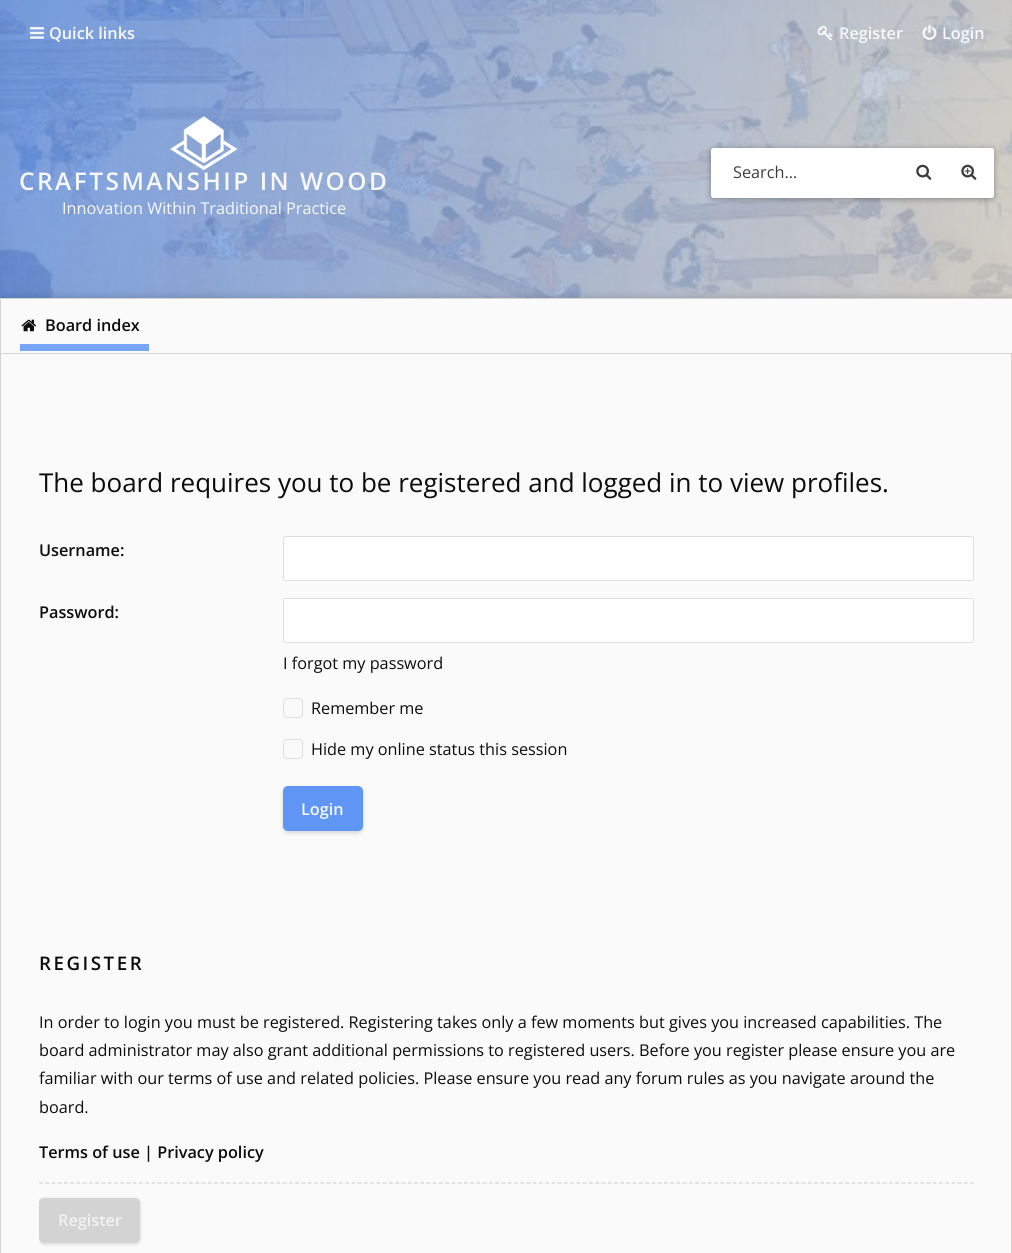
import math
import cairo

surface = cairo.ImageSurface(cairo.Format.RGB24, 1012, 1253)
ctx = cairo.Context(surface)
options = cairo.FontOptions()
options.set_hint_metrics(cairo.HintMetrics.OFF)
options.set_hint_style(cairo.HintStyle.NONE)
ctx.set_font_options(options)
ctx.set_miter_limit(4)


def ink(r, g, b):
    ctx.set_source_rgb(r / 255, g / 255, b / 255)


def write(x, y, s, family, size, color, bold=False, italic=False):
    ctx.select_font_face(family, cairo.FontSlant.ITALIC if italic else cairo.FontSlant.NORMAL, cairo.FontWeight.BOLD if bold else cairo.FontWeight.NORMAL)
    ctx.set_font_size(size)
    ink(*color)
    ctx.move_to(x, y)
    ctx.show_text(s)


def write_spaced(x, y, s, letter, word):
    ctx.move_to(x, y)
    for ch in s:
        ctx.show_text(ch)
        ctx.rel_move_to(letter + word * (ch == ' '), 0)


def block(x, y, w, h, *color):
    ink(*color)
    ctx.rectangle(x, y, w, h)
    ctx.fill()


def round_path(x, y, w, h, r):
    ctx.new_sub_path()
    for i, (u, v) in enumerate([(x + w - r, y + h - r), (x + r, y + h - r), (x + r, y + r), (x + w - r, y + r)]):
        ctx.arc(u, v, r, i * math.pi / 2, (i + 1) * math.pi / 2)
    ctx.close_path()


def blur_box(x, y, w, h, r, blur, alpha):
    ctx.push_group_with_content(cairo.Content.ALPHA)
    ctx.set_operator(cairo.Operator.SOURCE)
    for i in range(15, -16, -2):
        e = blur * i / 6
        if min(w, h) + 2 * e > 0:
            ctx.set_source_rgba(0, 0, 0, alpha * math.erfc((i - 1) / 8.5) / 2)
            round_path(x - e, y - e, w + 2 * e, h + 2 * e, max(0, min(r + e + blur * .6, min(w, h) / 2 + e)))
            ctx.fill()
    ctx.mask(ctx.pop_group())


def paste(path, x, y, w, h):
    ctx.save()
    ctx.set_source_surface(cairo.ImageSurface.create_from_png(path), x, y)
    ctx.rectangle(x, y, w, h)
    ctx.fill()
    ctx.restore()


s1 = dict(family="Open Sans SemiBold", size=16.25, color=(248, 248, 248))
s2 = dict(family="Open Sans", size=16.25, color=(248, 248, 248))
s3 = dict(family="Open Sans", size=16.25, color=(61, 61, 61))
s4 = dict(family="Open Sans SemiBold", size=16.25, color=(12, 12, 12))
s5 = dict(family="Open Sans", size=26, color=(12, 12, 12))
s6 = dict(family="Open Sans", size=16.25, color=(12, 12, 12))
s7 = dict(family="Open Sans SemiBold", size=16.25, color=(242, 242, 242))

ink(250, 250, 250)
ctx.paint()
gradient = cairo.LinearGradient(2.4, -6.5, 1010, 360)
gradient.add_color_stop_rgba(0, 0.373, 0.584, 0.957, 1)
gradient.add_color_stop_rgba(1, 0.827, 0.827, 0.827, 1)
ctx.set_source(gradient)
ctx.rectangle(0, 0, 1012, 298)
ctx.fill()
paste("pic4.png", 0, 0, 1012, 298)
paste("pic1.png", 30, 27, 14, 12)
write(49, 39, "Quick links", **s1)
paste("pic2.png", 817, 26, 16, 15)
write(839, 39, "Register", **s1)
paste("pic3.png", 922, 24, 15, 16)
write(942, 39, "Login", **s1)
paste("pic5.png", 170, 116, 68, 54)
ctx.set_font_size(24.4)
write_spaced(19, 190, "CRAFTSMANSHIP IN WOOD", 2.5, 0)
write(62, 214, "Innovation Within Traditional Practice", **s2)
ink(0, 0, 0)
blur_box(711, 149, 283, 50, 2.5, 3, 0.35)
ink(255, 255, 255)
round_path(711, 148, 283, 50, 2.5)
ctx.fill()
write(733, 178, "Search…", **s3)
paste("pic6.png", 916, 164, 16, 16)
paste("pic7.png", 961, 164, 16, 16)
block(1011, 354, 1, 899, 214, 211, 211)
block(0, 354, 1, 899, 214, 211, 211)
ink(0, 0, 0)
blur_box(0, 295, 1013, 56, 0, 3, 0.1)
ink(250, 250, 250)
ctx.rectangle(0.5, 298.5, 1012, 55)
ctx.fill_preserve()
ink(214, 211, 211)
ctx.set_line_width(1)
ctx.stroke()
paste("pic8.png", 21, 319, 16, 13)
ink(119, 165, 246)
ctx.new_path()
ctx.move_to(20, 344)
ctx.line_to(20, 351)
ctx.line_to(149, 351)
ctx.line_to(149, 315)
ctx.line_to(149, 344)
ctx.close_path()
ctx.fill()
write(45, 331, "Board index", **s4)
write(39, 492, "The board requires you to be registered and logged in to view profiles.", **s5)
write(39, 556, "Username:", **s4)
ink(255, 255, 255)
round_path(283.5, 536.5, 690, 44, 2)
ctx.fill_preserve()
ink(224, 222, 222)
ctx.stroke()
write(39, 618, "Password:", **s4)
ink(255, 255, 255)
round_path(283.5, 598.5, 690, 44, 2)
ctx.fill_preserve()
ink(224, 222, 222)
ctx.stroke()
write(283, 669, "I forgot my password", **s6)
round_path(283.5, 698.5, 19, 19, 3.5)
ink(223, 221, 221)
ctx.stroke()
write(311, 714, "Remember me", **s6)
round_path(283.5, 739.5, 19, 19, 3.5)
ink(223, 221, 221)
ctx.stroke()
write(311, 755, "Hide my online status this session", **s6)
ink(0, 0, 0)
blur_box(283, 788, 80, 45, 5, 2, 0.15)
ink(95, 149, 244)
round_path(283, 786, 80, 45, 5)
ctx.fill()
write(301, 815, "Login", **s1)
ctx.set_font_size(18.75)
ink(12, 12, 12)
write_spaced(39, 970, "REGISTER", 2.5, 0)
write(39, 1028, "In order to login you must be registered. Registering takes only a few moments but gives you increased capabilities. The", **s6)
write(39, 1056, "board administrator may also grant additional permissions to registered users. Before you register please ensure you are", **s6)
write(39, 1084, "familiar with our terms of use and related policies. Please ensure you read any forum rules as you navigate around the", **s6)
write(39, 1113, "board.", **s6)
write(39, 1158, "Terms of use | Privacy policy", **s4)
ctx.new_path()
ctx.move_to(39, 1183)
ctx.line_to(974, 1183)
ink(214, 211, 211)
ctx.set_line_width(1.2)
ctx.set_dash([3.75, 2.5])
ctx.stroke()
ctx.save()
ctx.rectangle(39, 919, 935, 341)
ctx.clip()
ink(0, 0, 0)
blur_box(39, 1199, 101, 45, 5, 2, 0.15)
ctx.restore()
ink(211, 211, 211)
round_path(39, 1198, 101, 45, 5)
ctx.fill()
write(58, 1226, "Register", **s7)
surface.write_to_png("screenshot.png")
